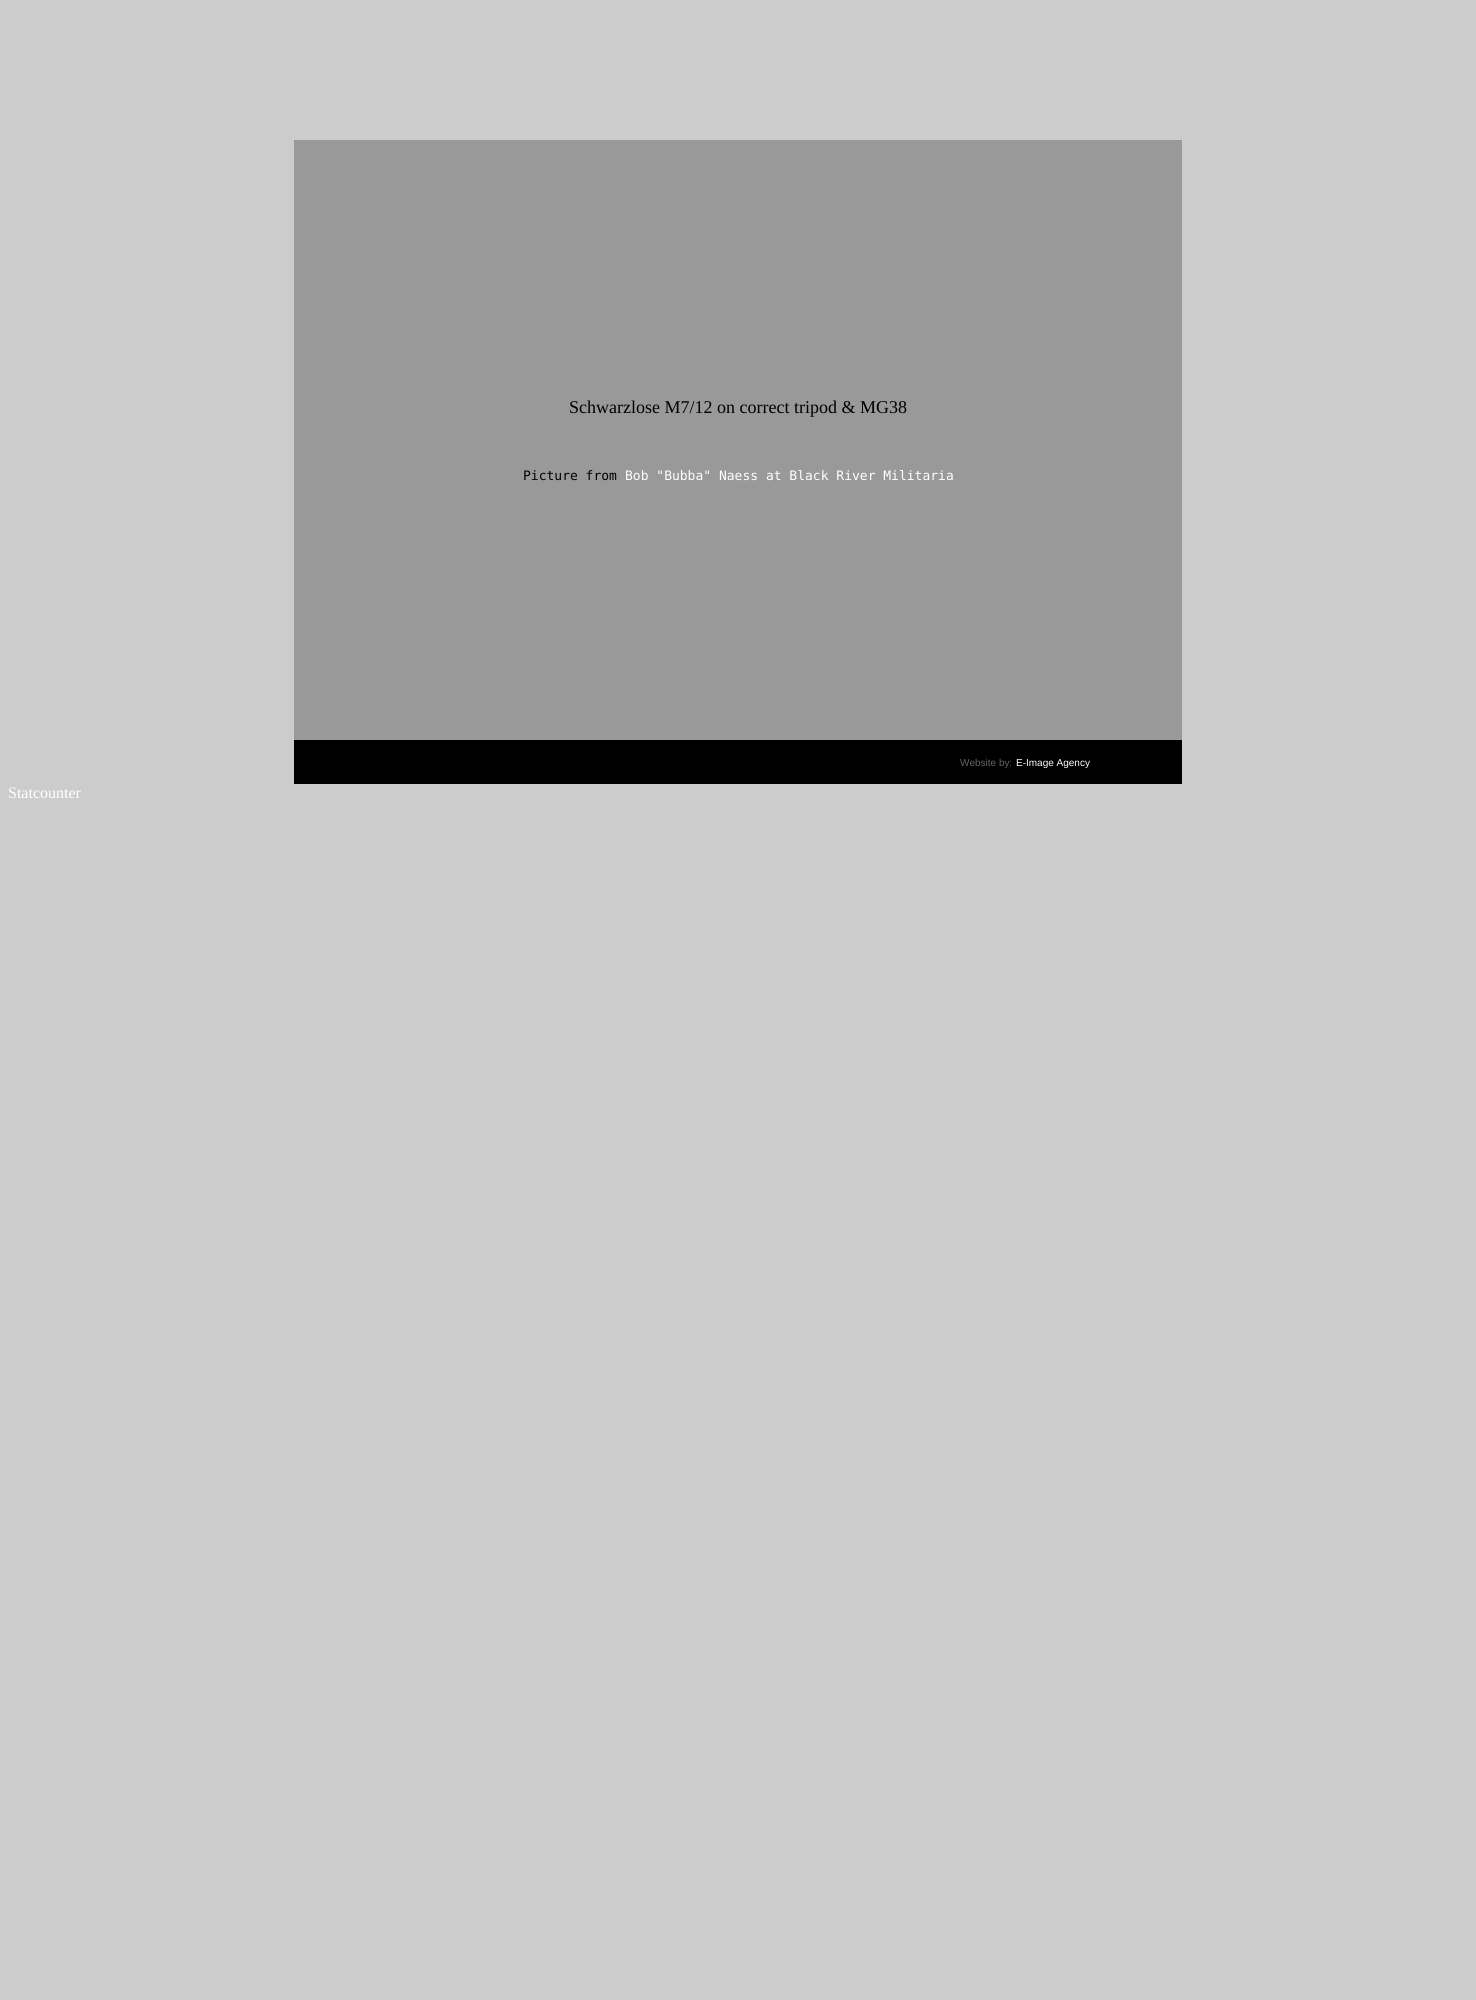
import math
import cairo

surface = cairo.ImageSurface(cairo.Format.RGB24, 1476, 2000)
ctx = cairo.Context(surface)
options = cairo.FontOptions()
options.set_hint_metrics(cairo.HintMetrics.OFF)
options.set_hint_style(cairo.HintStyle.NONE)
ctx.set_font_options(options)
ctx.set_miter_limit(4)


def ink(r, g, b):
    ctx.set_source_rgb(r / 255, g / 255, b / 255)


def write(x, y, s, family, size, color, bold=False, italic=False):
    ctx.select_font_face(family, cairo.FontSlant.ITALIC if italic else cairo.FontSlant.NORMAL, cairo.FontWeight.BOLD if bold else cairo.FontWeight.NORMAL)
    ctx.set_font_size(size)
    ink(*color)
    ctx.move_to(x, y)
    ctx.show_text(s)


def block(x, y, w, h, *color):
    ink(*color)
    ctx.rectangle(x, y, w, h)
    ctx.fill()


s1 = dict(family="Liberation Serif", size=18, color=(0, 0, 0))
s2 = dict(family="DejaVu Sans Mono", size=13, color=(0, 0, 0))
s3 = dict(family="DejaVu Sans Mono", size=13, color=(255, 255, 255))
s4 = dict(family="Liberation Sans", size=10, color=(102, 102, 102))
s5 = dict(family="Liberation Sans", size=10, color=(255, 255, 255))
s6 = dict(family="Liberation Serif", size=16, color=(255, 255, 255))

ink(204, 204, 204)
ctx.paint()
block(294, 140, 888, 600, 153, 153, 153)
write(569, 413, "Schwarzlose M7/12 on correct tripod & MG38", **s1)
write(523, 480, "Picture from", **s2)
write(625, 480, "Bob \"Bubba\" Naess at Black River Militaria", **s3)
block(294, 740, 888, 44, 0, 0, 0)
write(960, 766, "Website by:", **s4)
write(1016, 766, "E-Image Agency", **s5)
write(8, 798, "Statcounter", **s6)
surface.write_to_png("screenshot.png")
